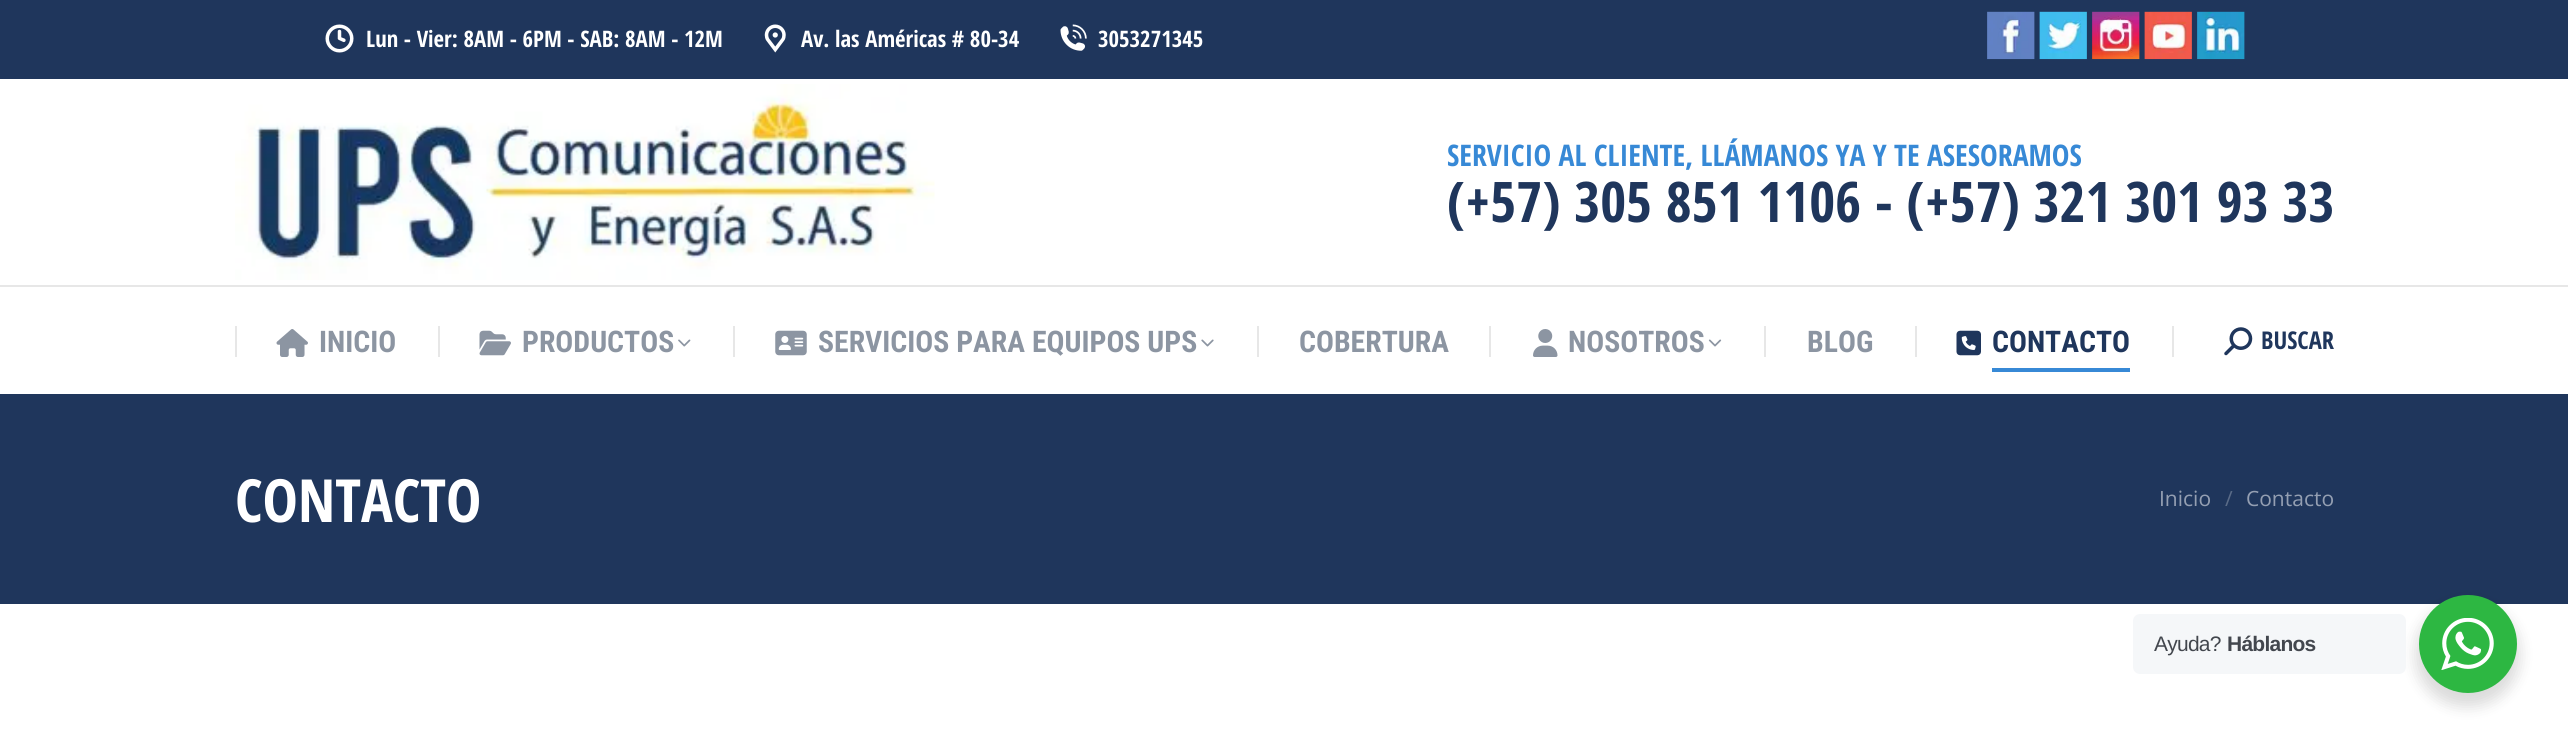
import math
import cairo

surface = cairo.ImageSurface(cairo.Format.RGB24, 2568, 744)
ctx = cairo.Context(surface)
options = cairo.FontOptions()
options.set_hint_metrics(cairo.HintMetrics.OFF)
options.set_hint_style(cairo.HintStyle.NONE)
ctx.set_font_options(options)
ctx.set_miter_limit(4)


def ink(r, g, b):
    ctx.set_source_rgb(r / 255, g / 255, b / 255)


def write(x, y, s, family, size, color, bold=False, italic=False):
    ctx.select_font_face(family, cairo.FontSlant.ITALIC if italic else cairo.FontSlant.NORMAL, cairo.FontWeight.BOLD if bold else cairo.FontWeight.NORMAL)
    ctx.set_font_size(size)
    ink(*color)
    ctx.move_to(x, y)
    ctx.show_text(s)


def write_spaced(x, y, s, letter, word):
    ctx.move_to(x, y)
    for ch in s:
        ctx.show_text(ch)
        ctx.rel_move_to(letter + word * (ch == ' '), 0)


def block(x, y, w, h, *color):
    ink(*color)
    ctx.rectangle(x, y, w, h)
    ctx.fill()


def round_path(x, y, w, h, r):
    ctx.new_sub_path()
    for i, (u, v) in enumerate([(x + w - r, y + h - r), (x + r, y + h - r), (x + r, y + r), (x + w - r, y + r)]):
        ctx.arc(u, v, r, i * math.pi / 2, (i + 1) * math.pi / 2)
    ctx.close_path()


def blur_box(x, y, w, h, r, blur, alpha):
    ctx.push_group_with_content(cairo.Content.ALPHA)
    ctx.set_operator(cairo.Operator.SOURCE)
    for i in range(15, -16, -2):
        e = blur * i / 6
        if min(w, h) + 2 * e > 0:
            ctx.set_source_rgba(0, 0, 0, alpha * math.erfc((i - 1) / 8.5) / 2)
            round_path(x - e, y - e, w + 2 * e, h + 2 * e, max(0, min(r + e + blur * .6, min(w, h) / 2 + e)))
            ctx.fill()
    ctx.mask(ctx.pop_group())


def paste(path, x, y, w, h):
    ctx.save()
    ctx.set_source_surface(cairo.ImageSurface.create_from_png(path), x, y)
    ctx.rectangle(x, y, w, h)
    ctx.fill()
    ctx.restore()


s1 = dict(family="Open Sans Condensed", size=22.75, color=(255, 255, 255), bold=True)
s2 = dict(family="Open Sans Condensed", size=29.75, color=(55, 137, 214), bold=True)
s3 = dict(family="Open Sans Condensed", size=56, color=(31, 54, 92), bold=True)
s4 = dict(family="Roboto Condensed", size=29.75, color=(140, 149, 162), bold=True)
s5 = dict(family="Roboto Condensed", size=29.75, color=(31, 54, 92), bold=True)
s6 = dict(family="Open Sans Condensed", size=24.5, color=(31, 54, 92), bold=True)
s7 = dict(family="Open Sans Condensed", size=59.5, color=(255, 255, 255), bold=True)
s8 = dict(family="Open Sans", size=21, color=(148, 159, 178))
s9 = dict(family="Open Sans", size=21, color=(90, 107, 135))

ink(255, 255, 255)
ctx.paint()
block(0, 0, 2568, 79, 31, 54, 92)
paste("pic1.png", 325, 24, 29, 29)
write(366, 47, "Lun - Vier: 8AM - 6PM - SAB: 8AM - 12M", **s1)
paste("pic2.png", 764, 24, 22, 29)
write(801, 47, "Av. las Américas # 80-34", **s1)
paste("pic3.png", 1060, 24, 27, 27)
write(1098, 47, "3053271345", **s1)
paste("pic4.png", 1987, 11, 48, 49)
paste("pic5.png", 2039, 11, 48, 49)
paste("pic6.png", 2092, 11, 48, 49)
paste("pic7.png", 2144, 11, 48, 49)
paste("pic8.png", 2197, 11, 48, 49)
paste("pic9.png", 235, 84, 700, 196)
write(1447, 166, "SERVICIO AL CLIENTE, LLÁMANOS YA Y TE ASESORAMOS", **s2)
write(1447, 222, "(+57) 305 851 1106 - (+57) 321 301 93 33", **s3)
block(0, 285, 2568, 2, 231, 231, 231)
block(235, 326, 2, 31, 231, 231, 231)
paste("pic10.png", 276, 329, 32, 28)
write(319, 352, "INICIO", **s4)
block(438, 326, 2, 31, 231, 231, 231)
paste("pic11.png", 479, 330, 32, 26)
write(522, 352, "PRODUCTOS", **s4)
paste("pic12.png", 678, 339, 13, 8)
block(733, 326, 2, 31, 231, 231, 231)
paste("pic13.png", 775, 330, 32, 26)
write(818, 352, "SERVICIOS PARA EQUIPOS UPS", **s4)
paste("pic14.png", 1201, 339, 13, 8)
block(1257, 326, 2, 31, 231, 231, 231)
write(1299, 352, "COBERTURA", **s4)
block(1489, 326, 2, 31, 231, 231, 231)
paste("pic15.png", 1533, 329, 25, 28)
write(1568, 352, "NOSOTROS", **s4)
paste("pic16.png", 1708, 339, 14, 8)
block(1764, 326, 2, 31, 231, 231, 231)
write(1807, 352, "BLOG", **s4)
block(1915, 326, 2, 31, 231, 231, 231)
paste("pic17.png", 1956, 330, 25, 26)
write(1992, 352, "CONTACTO", **s5)
block(1992, 368, 138, 4, 55, 137, 214)
block(2172, 326, 2, 31, 231, 231, 231)
paste("pic18.png", 2224, 327, 29, 29)
write(2261, 349, "BUSCAR", **s6)
block(0, 394, 2568, 210, 31, 54, 92)
write(235, 522, "CONTACTO", **s7)
write(2159, 506, "Inicio", **s8)
write(2225, 506, "/", **s9)
write(2246, 506, "Contacto", **s8)
ink(0, 0, 0)
blur_box(2415, 602, 105, 105, 52.5, 7, 0.14)
ink(245, 247, 249)
round_path(2133, 614, 273, 60, 7)
ctx.fill()
ctx.select_font_face("Liberation Sans")
ink(67, 71, 78)
write_spaced(2154, 651, "Ayuda?", -0.75, 0)
ctx.select_font_face("Liberation Sans", cairo.FontSlant.NORMAL, cairo.FontWeight.BOLD)
write_spaced(2227, 651, "Háblanos", -0.75, 0)
ink(45, 183, 66)
ctx.new_path()
ctx.arc(2468, 644, 49, 0, 2 * math.pi)
ctx.fill()
paste("pic19.png", 2441, 618, 53, 52)
surface.write_to_png("screenshot.png")
